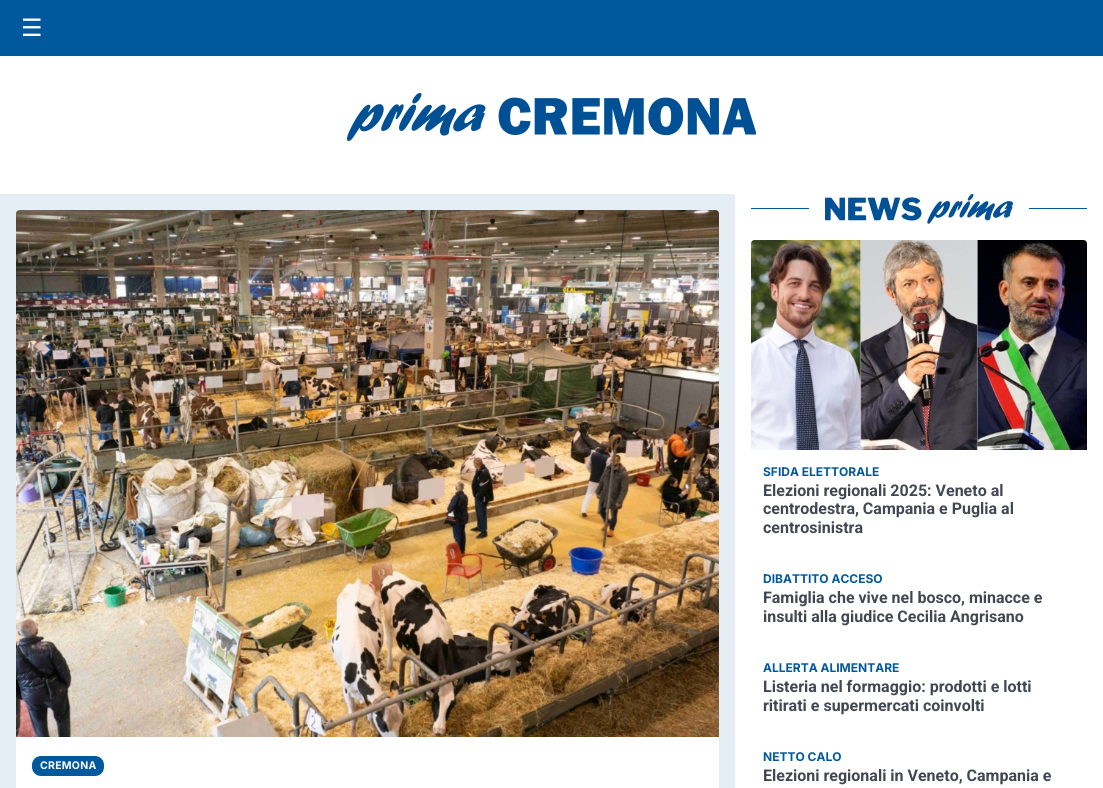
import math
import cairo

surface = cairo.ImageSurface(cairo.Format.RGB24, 1103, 788)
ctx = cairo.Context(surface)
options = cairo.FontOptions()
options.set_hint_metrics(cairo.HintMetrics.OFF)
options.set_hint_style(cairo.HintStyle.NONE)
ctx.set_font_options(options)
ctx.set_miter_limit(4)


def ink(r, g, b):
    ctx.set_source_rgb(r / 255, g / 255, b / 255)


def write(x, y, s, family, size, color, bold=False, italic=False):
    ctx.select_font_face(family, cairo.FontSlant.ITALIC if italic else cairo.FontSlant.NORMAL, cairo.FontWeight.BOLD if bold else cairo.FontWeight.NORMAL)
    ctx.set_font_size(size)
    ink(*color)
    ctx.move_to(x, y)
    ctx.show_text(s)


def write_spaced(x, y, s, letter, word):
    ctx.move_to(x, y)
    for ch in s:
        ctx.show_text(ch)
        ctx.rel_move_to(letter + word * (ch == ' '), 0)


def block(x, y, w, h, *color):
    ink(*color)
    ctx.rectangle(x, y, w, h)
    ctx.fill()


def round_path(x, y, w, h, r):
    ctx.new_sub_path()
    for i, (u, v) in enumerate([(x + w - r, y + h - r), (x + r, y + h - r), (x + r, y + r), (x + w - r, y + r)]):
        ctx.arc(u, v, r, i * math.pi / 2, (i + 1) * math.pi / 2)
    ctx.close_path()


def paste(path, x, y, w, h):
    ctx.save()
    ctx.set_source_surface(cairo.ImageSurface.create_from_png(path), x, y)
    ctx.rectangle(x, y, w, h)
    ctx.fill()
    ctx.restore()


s1 = dict(family="DejaVu Sans", size=24, color=(255, 255, 255))
s2 = dict(family="Inter", size=12, color=(0, 89, 156), bold=True)
s3 = dict(family="Roboto", size=16, color=(66, 71, 81), bold=True)

ink(255, 255, 255)
ctx.paint()
block(0, 0, 1103, 56, 0, 89, 156)
write(21, 36, "☰", **s1)
paste("pic1.png", 347, 93, 409, 48)
block(0, 194, 735, 594, 230, 238, 245)
ink(255, 255, 255)
round_path(16, 210, 703, 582, 4)
ctx.fill()
paste("pic2.png", 16, 210, 703, 527)
ink(0, 89, 156)
round_path(32, 756, 72, 20, 9)
ctx.fill()
ctx.select_font_face("Inter", cairo.FontSlant.NORMAL, cairo.FontWeight.BOLD)
ctx.set_font_size(10.5)
ink(255, 255, 255)
write_spaced(40, 769, "CREMONA", 0.25, 0)
block(751, 208, 336, 1, 0, 89, 156)
block(809, 208, 220, 1, 255, 255, 255)
paste("pic3.png", 825, 194, 188, 30)
paste("pic4.png", 751, 240, 336, 210)
write(763, 476, "SFIDA ELETTORALE", **s2)
write(763, 496, "Elezioni regionali 2025: Veneto al", **s3)
write(763, 514, "centrodestra, Campania e Puglia al", **s3)
write(763, 533, "centrosinistra", **s3)
write(763, 583, "DIBATTITO ACCESO", **s2)
write(763, 603, "Famiglia che vive nel bosco, minacce e", **s3)
write(763, 622, "insulti alla giudice Cecilia Angrisano", **s3)
write(763, 672, "ALLERTA ALIMENTARE", **s2)
write(763, 692, "Listeria nel formaggio: prodotti e lotti", **s3)
write(763, 711, "ritirati e supermercati coinvolti", **s3)
write(763, 761, "NETTO CALO", **s2)
write(763, 781, "Elezioni regionali in Veneto, Campania e", **s3)
surface.write_to_png("screenshot.png")
